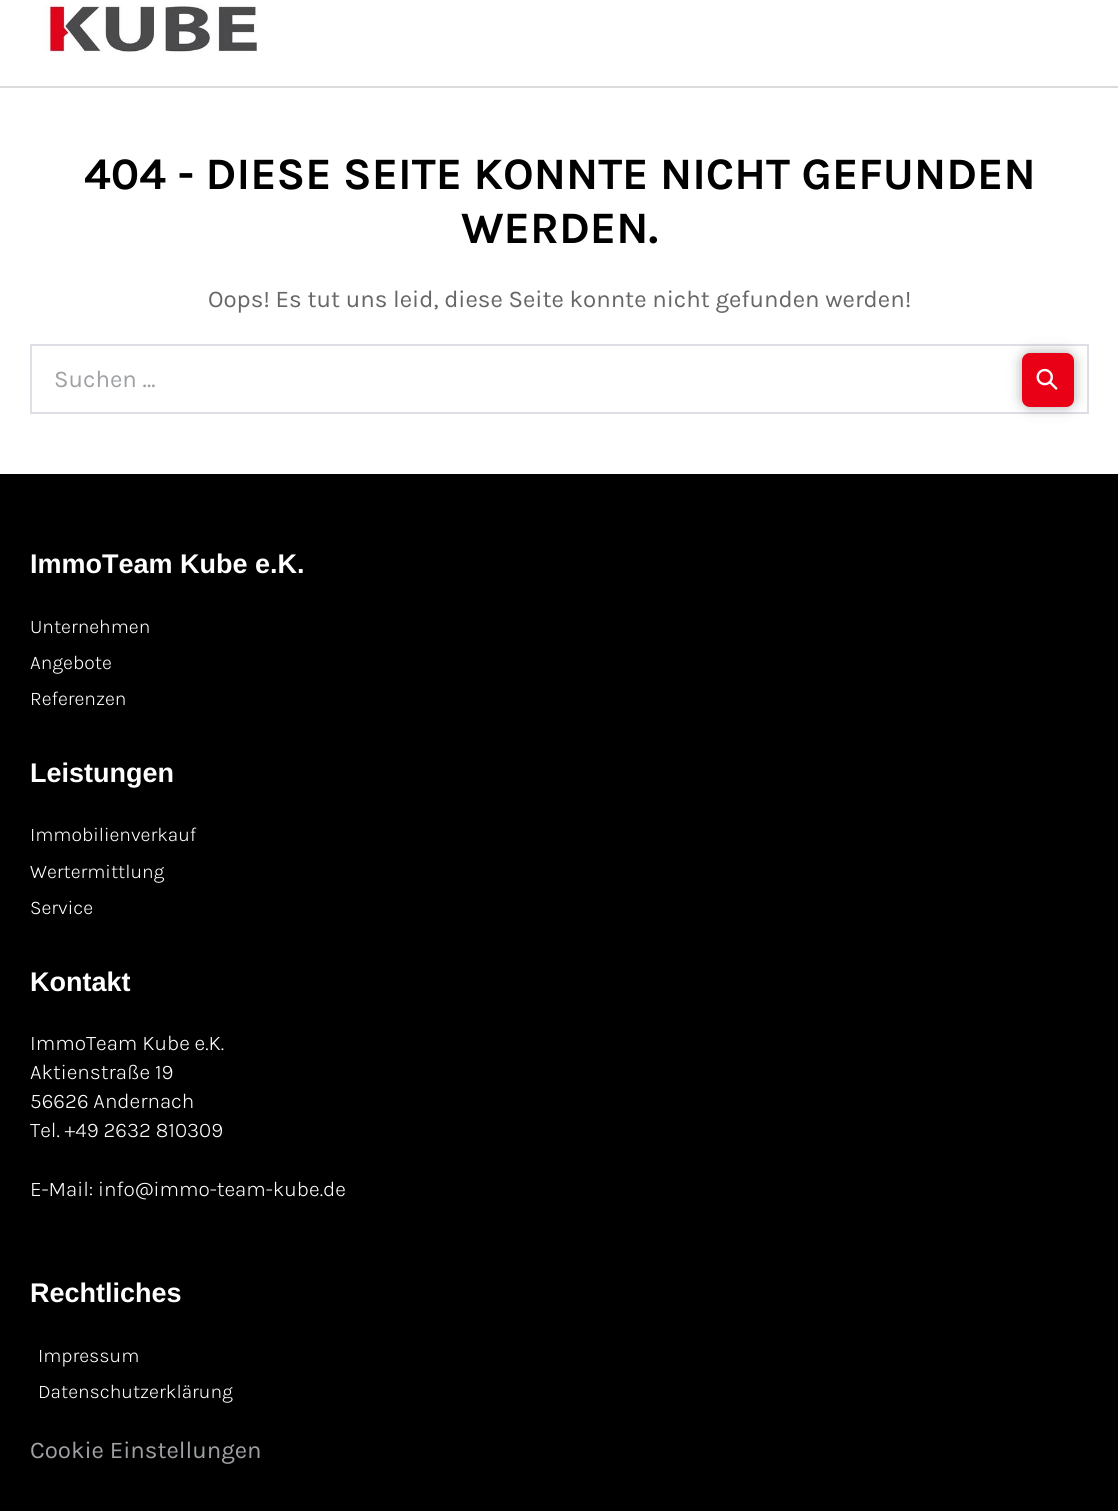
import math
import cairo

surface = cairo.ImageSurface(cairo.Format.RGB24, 1118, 1511)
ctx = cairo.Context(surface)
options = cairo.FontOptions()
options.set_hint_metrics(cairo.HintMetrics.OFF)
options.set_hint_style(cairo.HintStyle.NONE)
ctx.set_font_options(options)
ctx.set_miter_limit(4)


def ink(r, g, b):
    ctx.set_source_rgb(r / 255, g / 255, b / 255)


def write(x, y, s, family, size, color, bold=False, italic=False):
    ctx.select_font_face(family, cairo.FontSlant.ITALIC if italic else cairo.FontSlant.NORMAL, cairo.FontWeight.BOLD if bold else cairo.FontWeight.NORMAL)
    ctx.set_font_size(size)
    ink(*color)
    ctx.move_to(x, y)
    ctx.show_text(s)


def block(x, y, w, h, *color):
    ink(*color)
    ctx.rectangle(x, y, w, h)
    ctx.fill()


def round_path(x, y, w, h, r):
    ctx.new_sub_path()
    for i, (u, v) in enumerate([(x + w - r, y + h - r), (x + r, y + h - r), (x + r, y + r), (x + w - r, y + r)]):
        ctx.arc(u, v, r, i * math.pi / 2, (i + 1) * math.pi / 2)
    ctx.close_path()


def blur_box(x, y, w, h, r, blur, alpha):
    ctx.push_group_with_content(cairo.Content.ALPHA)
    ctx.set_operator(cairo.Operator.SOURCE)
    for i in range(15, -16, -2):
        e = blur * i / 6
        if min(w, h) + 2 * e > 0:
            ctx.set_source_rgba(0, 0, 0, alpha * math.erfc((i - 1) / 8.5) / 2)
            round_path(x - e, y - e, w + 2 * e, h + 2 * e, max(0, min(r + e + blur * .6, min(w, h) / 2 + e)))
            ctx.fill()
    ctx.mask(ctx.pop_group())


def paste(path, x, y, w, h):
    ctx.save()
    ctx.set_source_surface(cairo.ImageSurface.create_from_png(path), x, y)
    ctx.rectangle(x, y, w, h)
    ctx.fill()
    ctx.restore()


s1 = dict(family="Karla", size=45, color=(0, 0, 0), bold=True)
s2 = dict(family="Karla", size=24, color=(102, 102, 102))
s3 = dict(family="Karla", size=24, color=(159, 161, 164))
s4 = dict(family="Liberation Sans", size=27, color=(255, 255, 255), bold=True)
s5 = dict(family="Karla Light", size=19.5, color=(255, 255, 255))
s6 = dict(family="Karla Light", size=21, color=(255, 255, 255))

ink(255, 255, 255)
ctx.paint()
block(0, 86, 1118, 2, 219, 219, 219)
paste("pic1.png", 43, 4, 214, 49)
write(84, 189, "404 - DIESE SEITE KONNTE NICHT GEFUNDEN", **s1)
write(461, 243, "WERDEN.", **s1)
write(208, 307, "Oops! Es tut uns leid, diese Seite konnte nicht gefunden werden!", **s2)
ctx.rectangle(31, 345, 1057, 68)
ink(222, 222, 229)
ctx.stroke()
write(54, 387, "Suchen …", **s3)
ink(0, 0, 0)
blur_box(1025, 356, 46, 48, 5, 7.5, 0.5)
ink(233, 0, 22)
round_path(1022, 353, 52, 54, 8)
ctx.fill()
paste("pic2.png", 1036, 368, 22, 22)
block(0, 474, 1118, 1037, 0, 0, 0)
write(30, 573, "ImmoTeam Kube e.K.", **s4)
write(30, 633, "Unternehmen", **s5)
write(30, 669, "Angebote", **s5)
write(30, 705, "Referenzen", **s5)
write(30, 782, "Leistungen", **s4)
write(30, 841, "Immobilienverkauf", **s5)
write(30, 878, "Wertermittlung", **s5)
write(30, 914, "Service", **s5)
write(30, 991, "Kontakt", **s4)
write(30, 1050, "ImmoTeam Kube e.K.", **s6)
write(30, 1079, "Aktienstraße 19", **s6)
write(30, 1108, "56626 Andernach", **s6)
write(30, 1137, "Tel. +49 2632 810309", **s6)
write(30, 1196, "E-Mail: info@immo-team-kube.de", **s6)
write(30, 1302, "Rechtliches", **s4)
write(38, 1362, "Impressum", **s5)
write(38, 1398, "Datenschutzerklärung", **s5)
write(30, 1458, "Cookie Einstellungen", **s3)
surface.write_to_png("screenshot.png")
